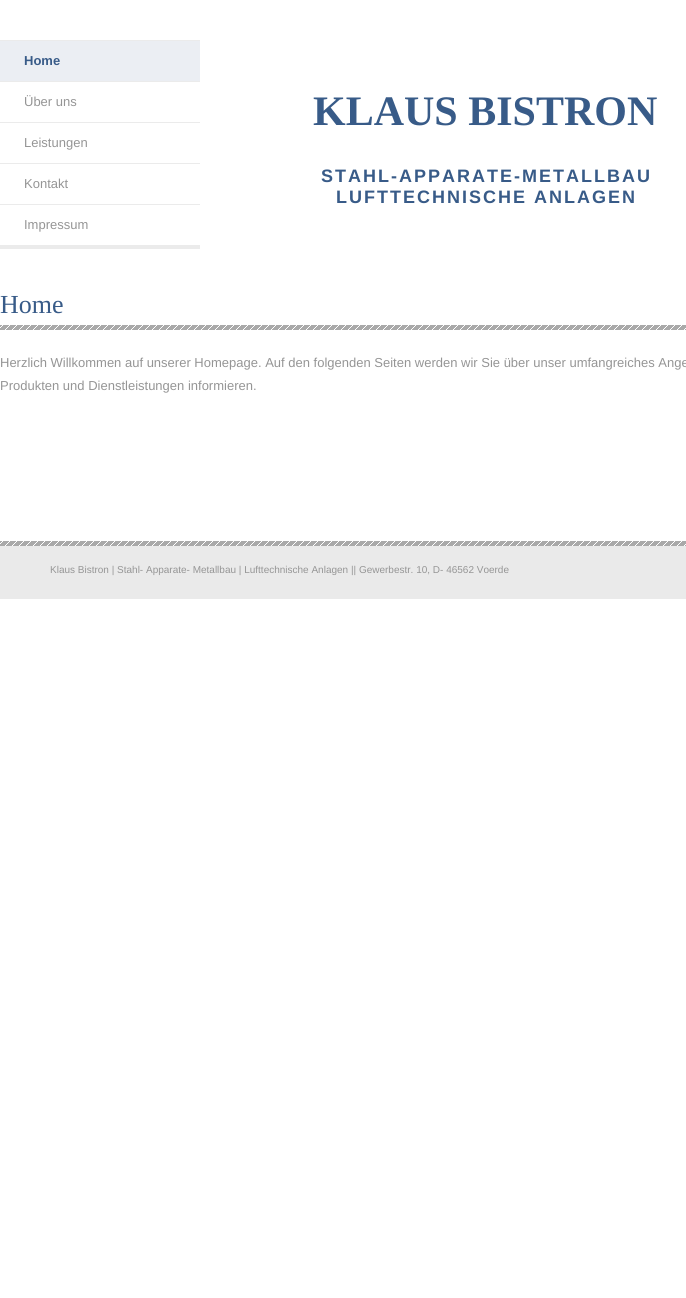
import math
import cairo

surface = cairo.ImageSurface(cairo.Format.RGB24, 686, 1298)
ctx = cairo.Context(surface)
options = cairo.FontOptions()
options.set_hint_metrics(cairo.HintMetrics.OFF)
options.set_hint_style(cairo.HintStyle.NONE)
ctx.set_font_options(options)
ctx.set_miter_limit(4)


def ink(r, g, b):
    ctx.set_source_rgb(r / 255, g / 255, b / 255)


def write(x, y, s, family, size, color, bold=False, italic=False):
    ctx.select_font_face(family, cairo.FontSlant.ITALIC if italic else cairo.FontSlant.NORMAL, cairo.FontWeight.BOLD if bold else cairo.FontWeight.NORMAL)
    ctx.set_font_size(size)
    ink(*color)
    ctx.move_to(x, y)
    ctx.show_text(s)


def write_spaced(x, y, s, letter, word):
    ctx.move_to(x, y)
    for ch in s:
        ctx.show_text(ch)
        ctx.rel_move_to(letter + word * (ch == ' '), 0)


def block(x, y, w, h, *color):
    ink(*color)
    ctx.rectangle(x, y, w, h)
    ctx.fill()


def paste(path, x, y, w, h):
    ctx.save()
    ctx.set_source_surface(cairo.ImageSurface.create_from_png(path), x, y)
    ctx.rectangle(x, y, w, h)
    ctx.fill()
    ctx.restore()


s1 = dict(family="Liberation Sans", size=13, color=(56, 91, 136), bold=True)
s2 = dict(family="Liberation Sans", size=13, color=(149, 149, 149))
s3 = dict(family="Liberation Serif", size=42, color=(56, 91, 136), bold=True)
s4 = dict(family="Liberation Serif", size=26, color=(56, 91, 136))
s5 = dict(family="Liberation Sans", size=10, color=(149, 149, 149))

ink(255, 255, 255)
ctx.paint()
block(0, 245, 200, 4, 235, 235, 235)
block(0, 41, 200, 40, 235, 238, 243)
block(0, 40, 200, 1, 235, 235, 235)
write(24, 65, "Home", **s1)
block(0, 81, 200, 1, 235, 235, 235)
write(24, 106, "Über uns", **s2)
block(0, 122, 200, 1, 235, 235, 235)
write(24, 147, "Leistungen", **s2)
block(0, 163, 200, 1, 235, 235, 235)
write(24, 188, "Kontakt", **s2)
block(0, 204, 200, 1, 235, 235, 235)
write(24, 229, "Impressum", **s2)
write(313, 125, "KLAUS BISTRON", **s3)
ctx.select_font_face("Liberation Sans", cairo.FontSlant.NORMAL, cairo.FontWeight.BOLD)
ctx.set_font_size(18)
write_spaced(321, 182, "STAHL-APPARATE-METALLBAU", 2, 0)
write_spaced(336, 203, "LUFTTECHNISCHE ANLAGEN", 2, 0)
paste("pic1.png", 0, 325, 686, 5)
write(0, 313, "Home", **s4)
write(0, 367, "Herzlich Willkommen auf unserer Homepage. Auf den folgenden Seiten werden wir Sie über unser umfangreiches Ange", **s2)
write(0, 390, "Produkten und Dienstleistungen informieren.", **s2)
block(0, 546, 686, 53, 234, 234, 234)
paste("pic1.png", 0, 541, 686, 5)
write(50, 573, "Klaus Bistron | Stahl- Apparate- Metallbau | Lufttechnische Anlagen || Gewerbestr. 10, D- 46562 Voerde", **s5)
surface.write_to_png("screenshot.png")
